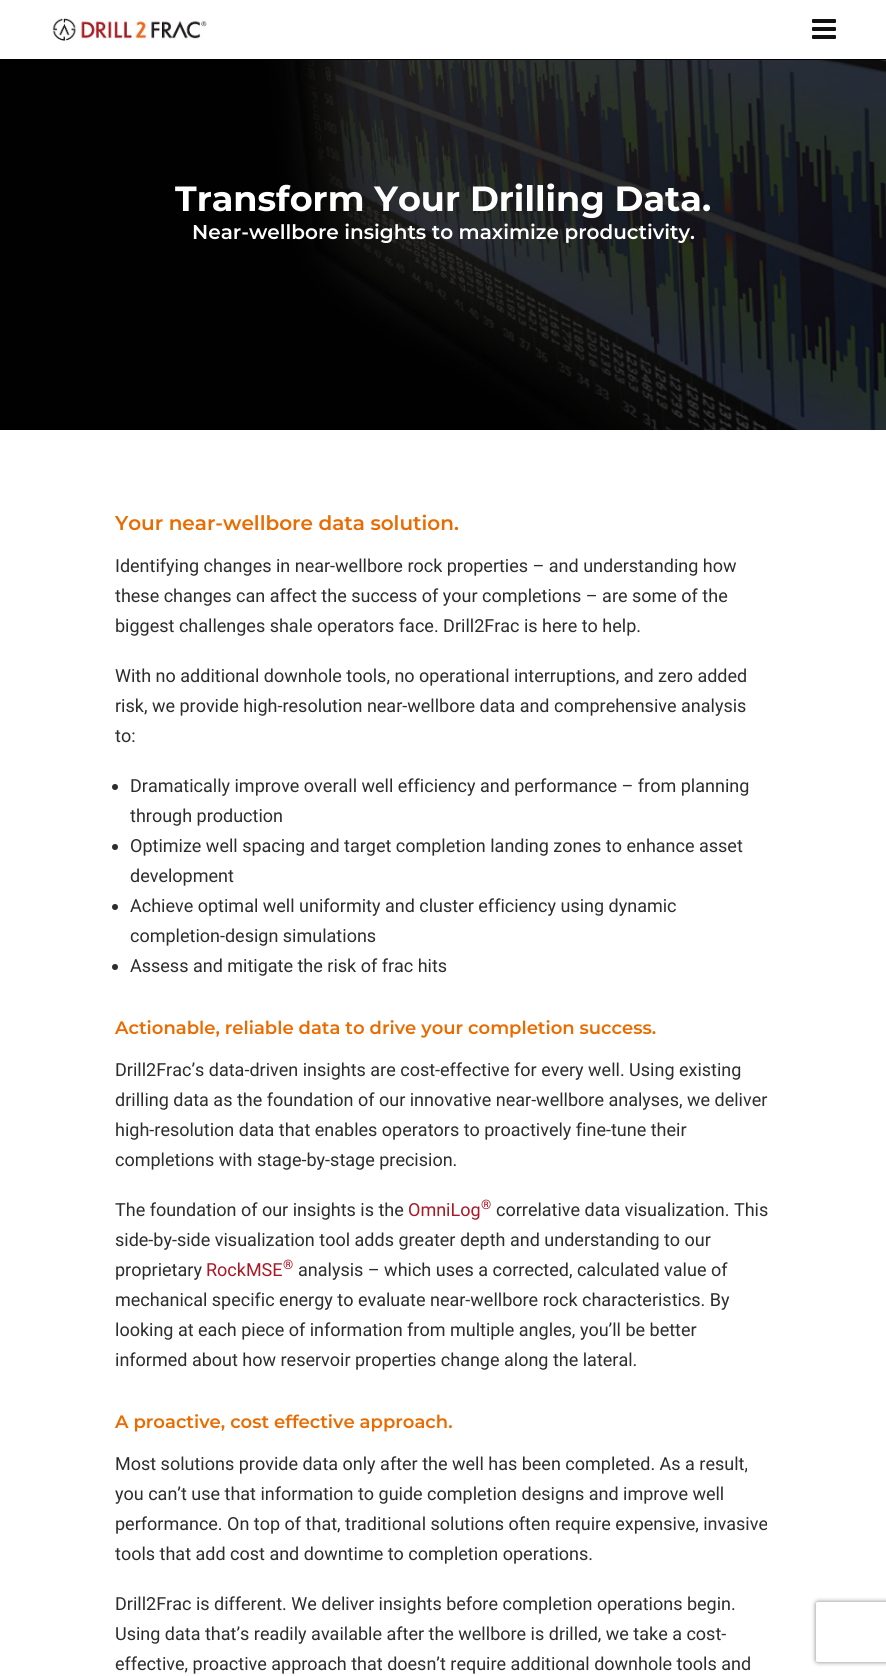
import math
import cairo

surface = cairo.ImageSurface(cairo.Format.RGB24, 886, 1676)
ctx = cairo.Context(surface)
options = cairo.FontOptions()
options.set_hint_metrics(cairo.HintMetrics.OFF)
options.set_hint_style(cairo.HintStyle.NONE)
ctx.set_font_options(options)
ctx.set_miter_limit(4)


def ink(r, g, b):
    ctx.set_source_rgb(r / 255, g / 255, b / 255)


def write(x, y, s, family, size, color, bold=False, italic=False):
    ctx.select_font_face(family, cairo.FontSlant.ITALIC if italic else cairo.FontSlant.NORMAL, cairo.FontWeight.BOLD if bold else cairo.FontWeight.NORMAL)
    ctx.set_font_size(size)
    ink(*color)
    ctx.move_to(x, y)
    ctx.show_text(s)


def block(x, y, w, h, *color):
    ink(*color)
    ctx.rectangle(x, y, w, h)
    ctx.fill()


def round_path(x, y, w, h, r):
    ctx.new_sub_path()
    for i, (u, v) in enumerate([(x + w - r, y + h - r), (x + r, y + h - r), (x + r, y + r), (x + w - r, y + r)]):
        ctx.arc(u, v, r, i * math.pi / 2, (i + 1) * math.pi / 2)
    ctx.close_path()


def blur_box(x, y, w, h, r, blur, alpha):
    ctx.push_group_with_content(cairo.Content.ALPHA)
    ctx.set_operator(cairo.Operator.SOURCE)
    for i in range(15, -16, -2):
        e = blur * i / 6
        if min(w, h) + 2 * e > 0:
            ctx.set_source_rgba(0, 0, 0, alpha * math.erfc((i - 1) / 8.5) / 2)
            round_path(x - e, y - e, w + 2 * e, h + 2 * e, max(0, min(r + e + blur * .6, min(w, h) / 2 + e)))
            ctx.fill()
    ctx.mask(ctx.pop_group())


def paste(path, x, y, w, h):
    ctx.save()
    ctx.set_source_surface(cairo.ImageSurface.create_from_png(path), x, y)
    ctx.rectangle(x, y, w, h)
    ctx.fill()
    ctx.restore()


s1 = dict(family="Montserrat", size=35, color=(255, 255, 255), bold=True)
s2 = dict(family="Montserrat SemiBold", size=20, color=(255, 255, 255))
s3 = dict(family="Montserrat SemiBold", size=20, color=(234, 107, 0))
s4 = dict(family="Roboto", size=18, color=(45, 45, 45))
s5 = dict(family="Montserrat SemiBold", size=18, color=(234, 107, 0))
s6 = dict(family="Roboto", size=18, color=(170, 24, 38))
s7 = dict(family="Roboto", size=13, color=(170, 24, 38))

ink(255, 255, 255)
ctx.paint()
block(0, 59, 886, 1, 0, 0, 0)
paste("pic1.png", 52, 18, 155, 23)
paste("pic2.png", 812, 19, 24, 20)
paste("pic3.png", 0, 60, 886, 370)
write(175, 211, "Transform Your Drilling Data.", **s1)
write(192, 239, "Near-wellbore insights to maximize productivity.", **s2)
write(115, 530, "Your near-wellbore data solution.", **s3)
write(115, 572, "Identifying changes in near-wellbore rock properties – and understanding how", **s4)
write(115, 602, "these changes can affect the success of your completions – are some of the", **s4)
write(115, 632, "biggest challenges shale operators face. Drill2Frac is here to help.", **s4)
write(115, 682, "With no additional downhole tools, no operational interruptions, and zero added", **s4)
write(115, 712, "risk, we provide high-resolution near-wellbore data and comprehensive analysis", **s4)
write(115, 742, "to:", **s4)
ctx.new_path()
ctx.arc(115, 787, 3, 0, 2 * math.pi)
ctx.fill()
write(130, 792, "Dramatically improve overall well efficiency and performance – from planning", **s4)
write(130, 822, "through production", **s4)
ctx.new_path()
ctx.arc(115, 847, 3, 0, 2 * math.pi)
ctx.fill()
write(130, 852, "Optimize well spacing and target completion landing zones to enhance asset", **s4)
write(130, 882, "development", **s4)
ctx.new_path()
ctx.arc(115, 907, 3, 0, 2 * math.pi)
ctx.fill()
write(130, 912, "Achieve optimal well uniformity and cluster efficiency using dynamic", **s4)
write(130, 942, "completion-design simulations", **s4)
ctx.new_path()
ctx.arc(115, 967, 3, 0, 2 * math.pi)
ctx.fill()
write(130, 972, "Assess and mitigate the risk of frac hits", **s4)
write(115, 1034, "Actionable, reliable data to drive your completion success.", **s5)
write(115, 1076, "Drill2Frac’s data-driven insights are cost-effective for every well. Using existing", **s4)
write(115, 1106, "drilling data as the foundation of our innovative near-wellbore analyses, we deliver", **s4)
write(115, 1136, "high-resolution data that enables operators to proactively fine-tune their", **s4)
write(115, 1166, "completions with stage-by-stage precision.", **s4)
write(115, 1216, "The foundation of our insights is the", **s4)
write(408, 1216, "OmniLog", **s6)
write(481, 1209, "®", **s7)
write(496, 1216, "correlative data visualization. This", **s4)
write(115, 1246, "side-by-side visualization tool adds greater depth and understanding to our", **s4)
write(115, 1276, "proprietary", **s4)
write(206, 1276, "RockMSE", **s6)
write(283, 1269, "®", **s7)
write(298, 1276, "analysis – which uses a corrected, calculated value of", **s4)
write(115, 1306, "mechanical specific energy to evaluate near-wellbore rock characteristics. By", **s4)
write(115, 1336, "looking at each piece of information from multiple angles, you’ll be better", **s4)
write(115, 1366, "informed about how reservoir properties change along the lateral.", **s4)
write(115, 1428, "A proactive, cost effective approach.", **s5)
write(115, 1470, "Most solutions provide data only after the well has been completed. As a result,", **s4)
write(115, 1500, "you can’t use that information to guide completion designs and improve well", **s4)
write(115, 1530, "performance. On top of that, traditional solutions often require expensive, invasive", **s4)
write(115, 1560, "tools that add cost and downtime to completion operations.", **s4)
write(115, 1610, "Drill2Frac is different. We deliver insights before completion operations begin.", **s4)
write(115, 1640, "Using data that’s readily available after the wellbore is drilled, we take a cost-", **s4)
write(115, 1670, "effective, proactive approach that doesn’t require additional downhole tools and", **s4)
ctx.save()
ctx.set_fill_rule(cairo.FillRule.EVEN_ODD)
ctx.new_path()
ctx.move_to(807, 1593)
ctx.line_to(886, 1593)
ctx.line_to(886, 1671)
ctx.line_to(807, 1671)
ctx.close_path()
ctx.move_to(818, 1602)
ctx.line_to(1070, 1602)
ctx.curve_to(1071, 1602, 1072, 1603, 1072, 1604)
ctx.line_to(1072, 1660)
ctx.curve_to(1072, 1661, 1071, 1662, 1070, 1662)
ctx.line_to(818, 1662)
ctx.curve_to(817, 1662, 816, 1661, 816, 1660)
ctx.line_to(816, 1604)
ctx.curve_to(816, 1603, 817, 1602, 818, 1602)
ctx.close_path()
ctx.clip()
ink(128, 128, 128)
blur_box(816, 1602, 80, 60, 2, 2.5, 1)
ctx.restore()
surface.write_to_png("screenshot.png")
